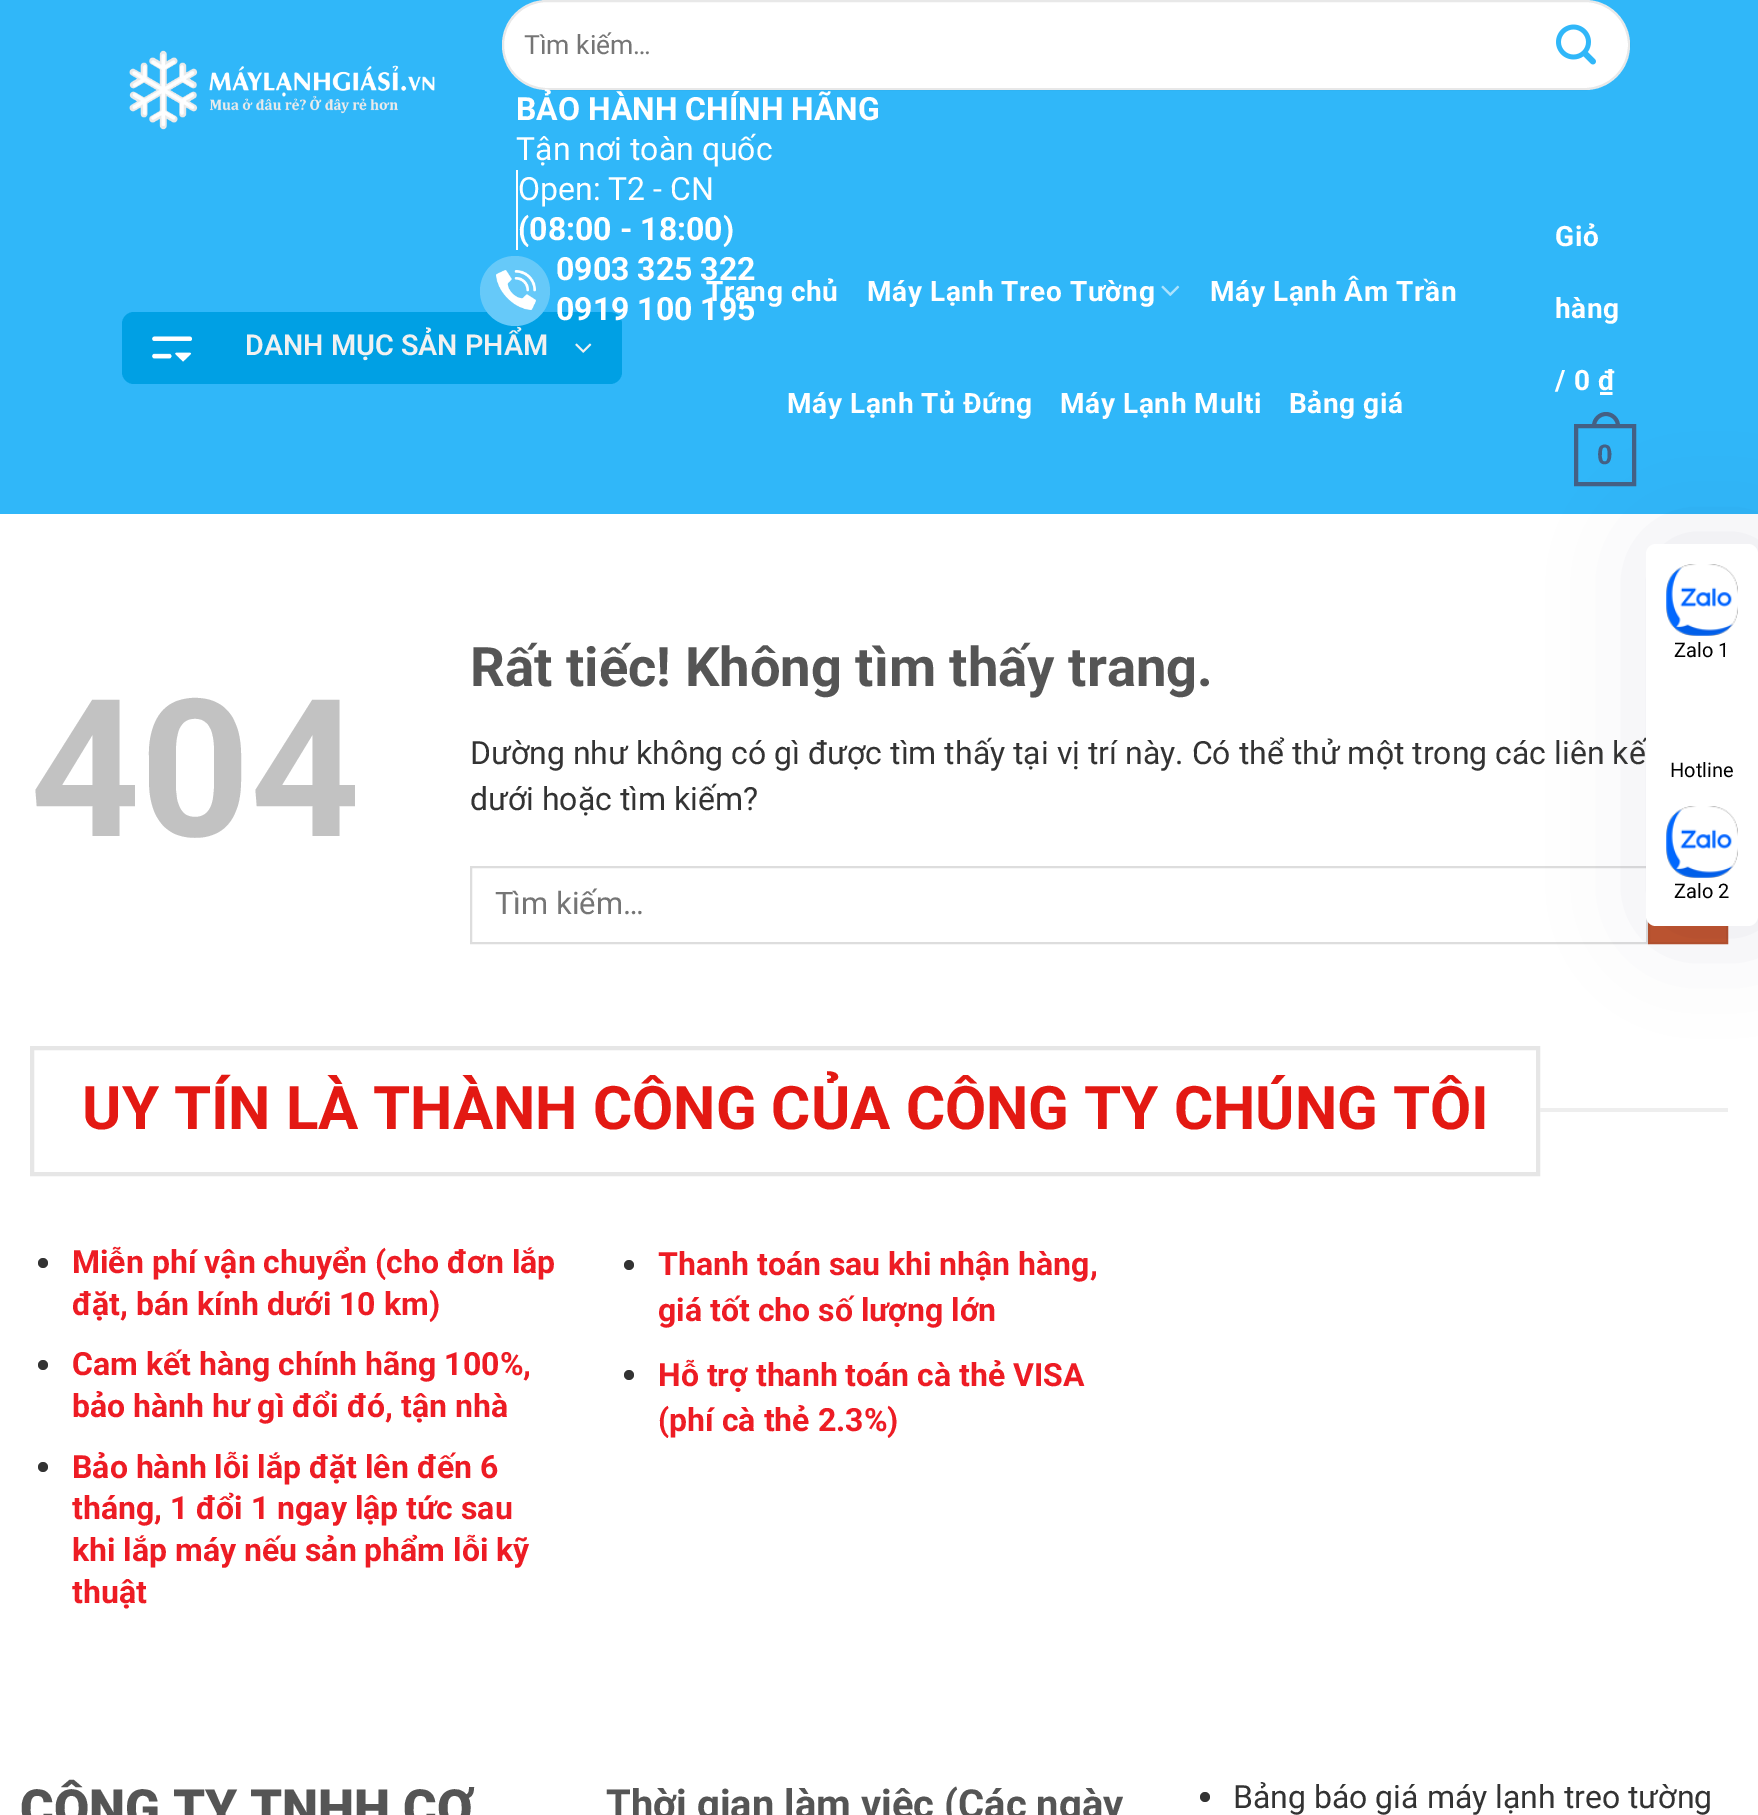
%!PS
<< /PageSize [1758 1815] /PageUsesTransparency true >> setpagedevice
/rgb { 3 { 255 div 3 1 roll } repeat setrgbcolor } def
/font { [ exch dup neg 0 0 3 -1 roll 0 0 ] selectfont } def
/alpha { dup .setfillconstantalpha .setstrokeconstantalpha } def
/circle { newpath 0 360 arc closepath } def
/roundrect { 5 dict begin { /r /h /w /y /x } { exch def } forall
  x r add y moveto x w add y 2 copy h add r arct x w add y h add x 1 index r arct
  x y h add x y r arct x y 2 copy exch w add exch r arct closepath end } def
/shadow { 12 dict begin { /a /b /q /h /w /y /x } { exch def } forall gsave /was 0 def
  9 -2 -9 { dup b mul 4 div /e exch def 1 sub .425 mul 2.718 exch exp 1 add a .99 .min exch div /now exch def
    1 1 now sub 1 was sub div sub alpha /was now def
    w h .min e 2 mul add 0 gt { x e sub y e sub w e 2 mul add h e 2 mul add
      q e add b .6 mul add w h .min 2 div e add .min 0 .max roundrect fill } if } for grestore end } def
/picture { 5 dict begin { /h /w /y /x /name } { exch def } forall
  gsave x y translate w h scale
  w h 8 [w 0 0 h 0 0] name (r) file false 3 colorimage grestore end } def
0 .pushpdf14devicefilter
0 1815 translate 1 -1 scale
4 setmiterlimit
255 255 255 rgb
0 0 1758 1815 rectfill
48 183 249 rgb
0 0 1758 514 rectfill
(img/1.rgb) 129 50 306 80 picture
255 255 255 rgb
502 0 1128 90 45 roundrect fill
0.09 alpha
0 0 0 rgb
2 setlinewidth
503 1 1126 88 44 roundrect stroke
1 alpha
(img/2.rgb) 1556 24 40 41 picture
255 255 255 rgb
516 170 2 80 rectfill
0 160 228 rgb
122 312 500 72 12 roundrect fill
102 201 249 rgb
515 291 35 circle fill
(img/3.rgb) 496 270 40 40 picture
(img/4.rgb) 152 336 40 26 picture
(img/5.rgb) 575 343 17 10 picture
(img/6.rgb) 1161 285 19 11 picture
68 96 132 rgb
4 setlinewidth
1576 426 58 58 rectstroke
1606 412 moveto 1613.5 412 1620 418.5 1620 426 curveto 1620 428 lineto 1592 428 lineto 1592 426 lineto 1592 418.5 1598.5 412 1606 412 curveto closepath 1606 416 moveto 1611.5 416 1616 420.5 1616 426 curveto 1616 428 lineto 1596 428 lineto 1596 426 lineto 1596 420.5 1600.5 416 1606 416 curveto closepath eofill
221 221 221 rgb
2 setlinewidth
471 867 1176 76 rectstroke
192 85 48 rgb
1650 924 76 18 rectfill
182 81 46 rgb
1649 867 78 76 rectstroke
230 230 230 rgb
4 setlinewidth
32 1048 1506 126 rectstroke
238 238 238 rgb
1540 1108 188 4 rectfill
51 51 51 rgb
43 1263 5 circle fill
43 1365 5 circle fill
43 1467 5 circle fill
629 1265 5 circle fill
629 1375 5 circle fill
1205 1797 5 circle fill
8 0 63 rgb
1658 544 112 382 10 50 0.1 shadow
/Roboto-Regular 26.5 font
117 117 117 rgb
524 54 moveto (Tìm kiếm…) show
/Roboto-Bold 32 font
255 255 255 rgb
516 120 moveto (BẢO HÀNH CHÍNH HÃNG) show
/Roboto-Regular 32 font
516 160 moveto (Tận nơi toàn quốc) show
518 200 moveto (Open: T2 - CN) show
/Roboto-Bold 32 font
518 240 moveto (\(08:00 - 18:00\)) show
556 280 moveto (0903 325 322) show
/Roboto-SemiBold 28.75 font
241 241 241 rgb
245 355 moveto (DANH MỤC SẢN PHẨM) show
/Roboto-Bold 28 font
255 255 255 rgb
706 301 moveto 0.6 0 (Trang chủ) ashow
/Roboto-Bold 32 font
556 320 moveto (0919 100 195) show
/Roboto-Bold 28 font
867 301 moveto 0.6 0 (Máy Lạnh Treo Tường) ashow
1210 301 moveto 0.6 0 (Máy Lạnh Âm Trần) ashow
787 413 moveto 0.6 0 (Máy Lạnh Tủ Đứng) ashow
1060 413 moveto 0.6 0 (Máy Lạnh Multi) ashow
1289 413 moveto 0.6 0 (Bảng giá) ashow
1555 246 moveto 0.6 0 (Giỏ) ashow
1555 318 moveto 0.6 0 (hàng) ashow
1555 390 moveto 0.6 0 (/ 0 ₫) ashow
/LiberationSans-Bold 28 font
68 96 132 rgb
1597 464 moveto 0.6 0 (0) ashow
/Roboto-Bold 192 font
194 194 194 rgb
30 836 moveto (404) show
/Roboto-Bold 54.4 font
85 85 85 rgb
470 686 moveto (Rất tiếc! Không tìm thấy trang.) show
/Roboto-Regular 32 font
51 51 51 rgb
470 764 moveto (Dường như không có gì được tìm thấy tại vị trí này. Có thể thử một trong các liên kế) show
470 810 moveto (dưới hoặc tìm kiếm?) show
/Roboto-Regular 31 font
117 117 117 rgb
495 914 moveto (Tìm kiếm…) show
/Roboto-Bold 60 font
227 25 19 rgb
82 1129 moveto (UY TÍN LÀ THÀNH CÔNG CỦA CÔNG TY CHÚNG TÔI) show
/Roboto-Bold 32 font
237 28 36 rgb
[
  [(Miễn phí vận chuyển \(cho đơn lắp) 72 1273]
  [(đặt, bán kính dưới 10 km\)) 72 1315]
  [(Cam kết hàng chính hãng 100%,) 72 1375]
  [(bảo hành hư gì đổi đó, tận nhà) 72 1417]
  [(Bảo hành lỗi lắp đặt lên đến 6) 72 1478]
  [(tháng, 1 đổi 1 ngay lập tức sau) 72 1519]
  [(khi lắp máy nếu sản phẩm lỗi kỹ) 72 1561]
  [(thuật) 72 1603]
  [(Thanh toán sau khi nhận hàng,) 658 1275]
  [(giá tốt cho số lượng lớn) 658 1321]
  [(Hỗ trợ thanh toán cà thẻ VISA) 658 1386]
  [(\(phí cà thẻ 2.3%\)) 658 1431]
] { aload pop moveto show } forall
/Roboto-Black 51.25 font
85 85 85 rgb
20 1826 moveto (CÔNG TY TNHH CƠ) show
/Roboto-Bold 40 font
606 1818 moveto (Thời gian làm việc \(Các ngày) show
/Roboto-Regular 32 font
51 51 51 rgb
1233 1808 moveto (Bảng báo giá máy lạnh treo tường) show
255 255 255 rgb
1646 544 112 382 10 roundrect fill
(img/7.rgb) 1666 564 72 72 picture
/Roboto-Regular 20 font
0 0 0 rgb
1674 657 moveto (Zalo 1) show
1670 777 moveto (Hotline) show
(img/7.rgb) 1666 806 72 72 picture
1674 898 moveto (Zalo 2) show
.poppdf14devicefilter showpage
